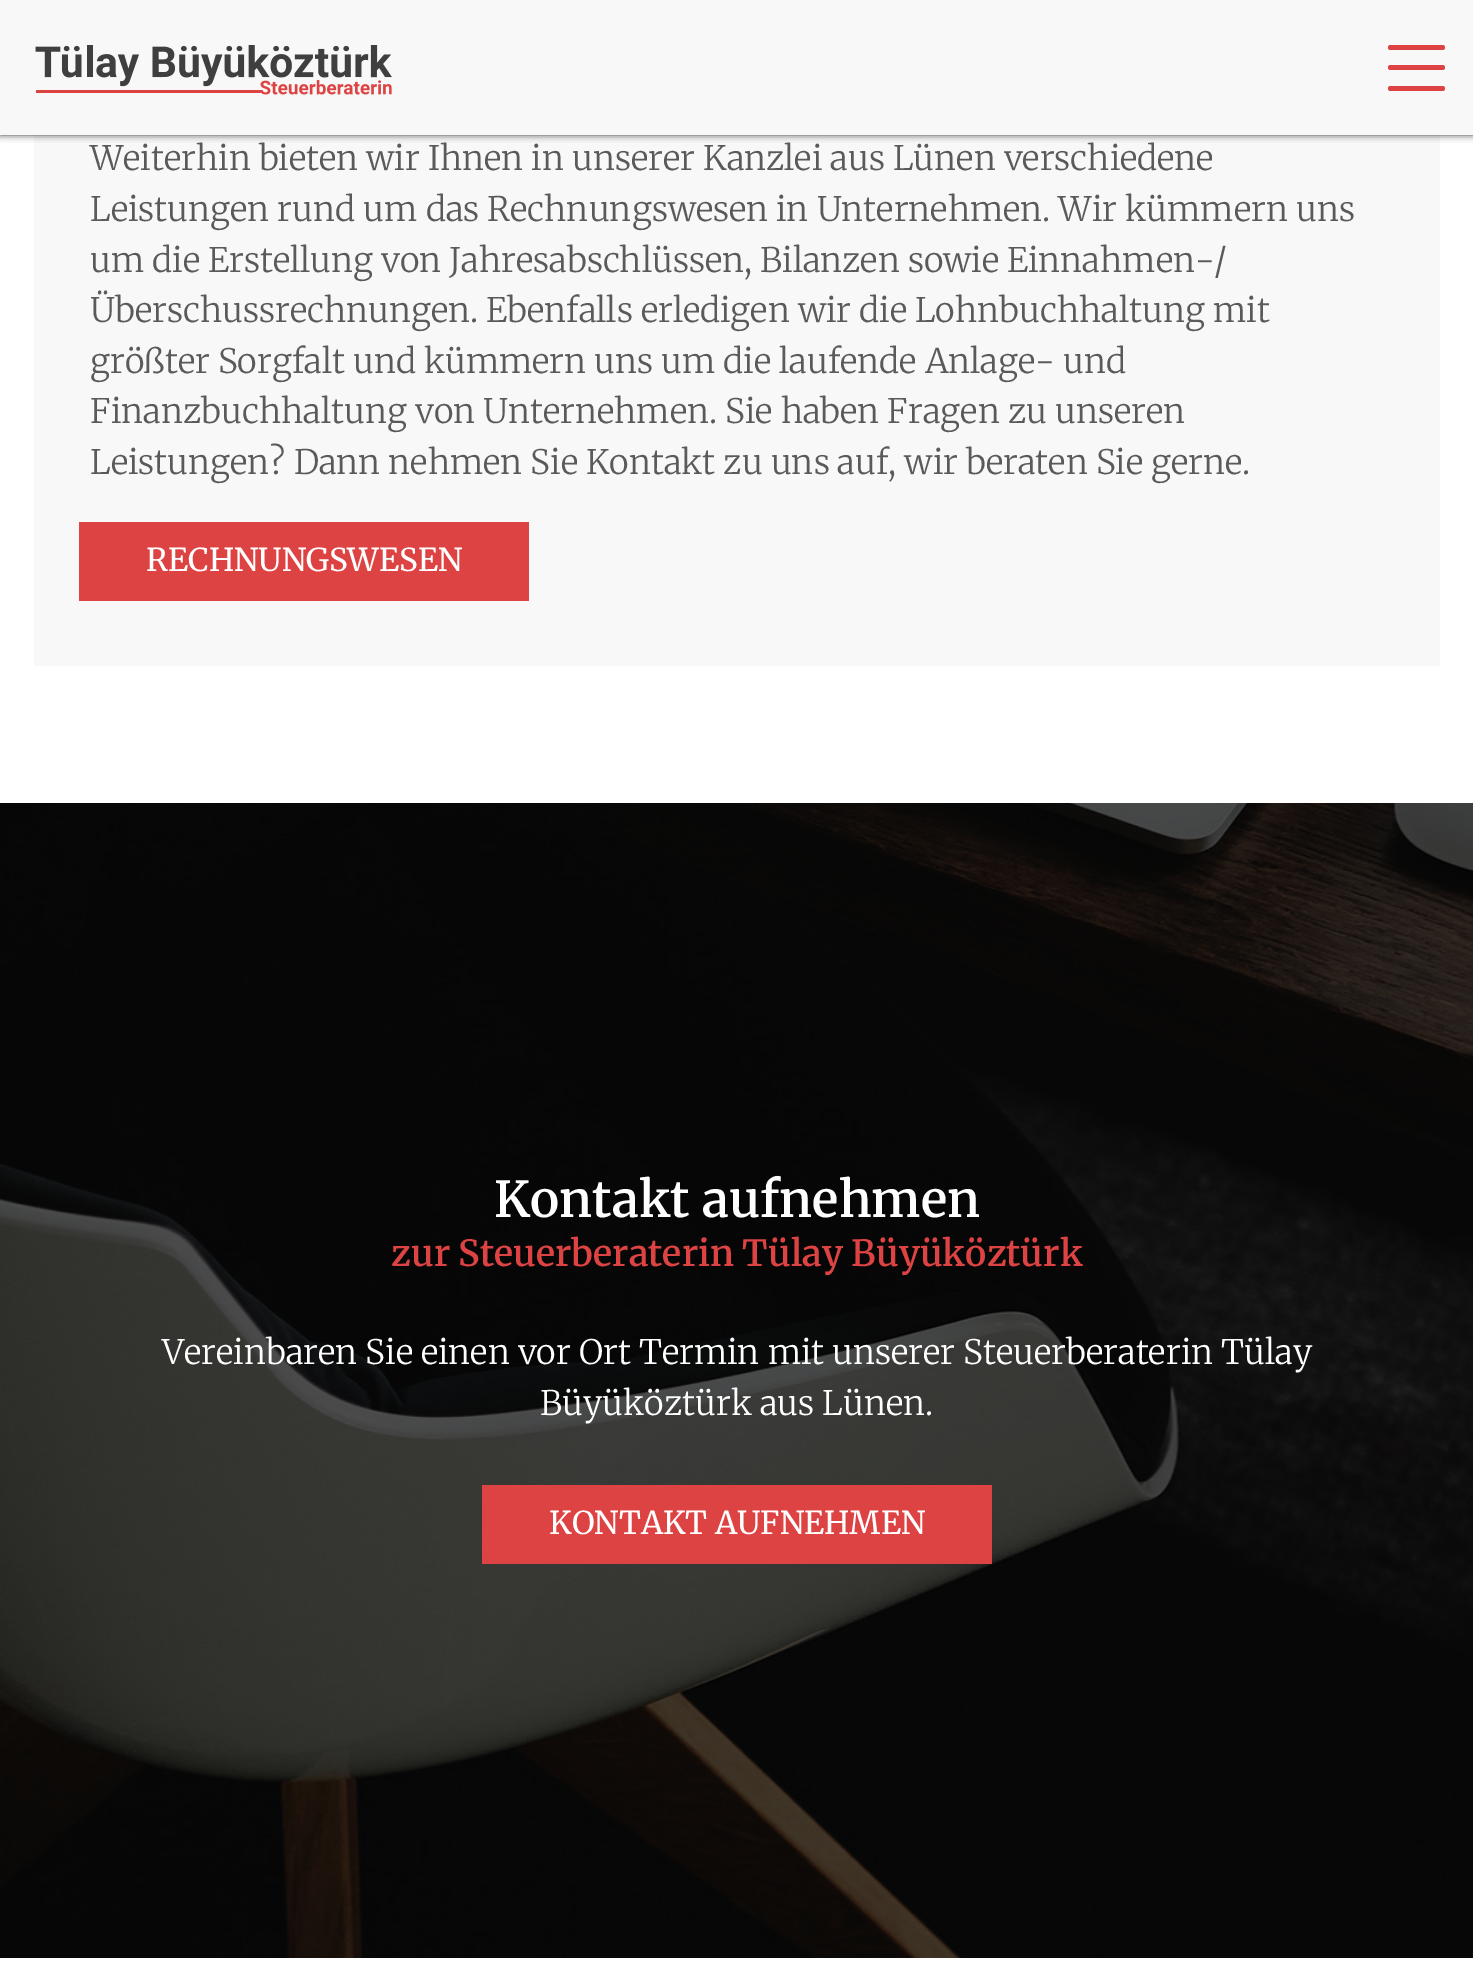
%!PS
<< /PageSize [1473 1973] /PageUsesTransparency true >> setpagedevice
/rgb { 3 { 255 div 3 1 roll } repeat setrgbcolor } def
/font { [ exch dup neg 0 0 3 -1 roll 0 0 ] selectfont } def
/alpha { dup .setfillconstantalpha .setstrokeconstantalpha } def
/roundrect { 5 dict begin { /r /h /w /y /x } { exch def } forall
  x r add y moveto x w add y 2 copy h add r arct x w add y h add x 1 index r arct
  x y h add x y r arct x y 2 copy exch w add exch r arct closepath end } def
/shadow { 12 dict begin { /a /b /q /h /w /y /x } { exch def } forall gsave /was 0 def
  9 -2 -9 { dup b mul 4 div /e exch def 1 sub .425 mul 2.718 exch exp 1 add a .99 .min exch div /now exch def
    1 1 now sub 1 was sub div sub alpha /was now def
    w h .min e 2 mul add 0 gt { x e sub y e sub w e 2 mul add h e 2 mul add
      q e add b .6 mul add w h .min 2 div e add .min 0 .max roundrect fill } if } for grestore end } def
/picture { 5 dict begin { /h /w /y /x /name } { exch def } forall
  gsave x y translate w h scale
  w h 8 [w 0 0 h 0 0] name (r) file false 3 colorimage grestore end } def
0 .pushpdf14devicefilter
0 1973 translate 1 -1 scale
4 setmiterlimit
255 255 255 rgb
0 0 1473 1973 rectfill
248 248 248 rgb
34 135 1406 531 rectfill
63 63 63 rgb
0 0 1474 135 0 3.5 1 shadow
248 248 248 rgb
0 0 1473 135 rectfill
(img/1.rgb) 35 45 357 50 picture
222 67 67 rgb
1388 45 57 5 2.5 roundrect fill
1388 65 57 5 2.5 roundrect fill
1388 86 57 5 2.5 roundrect fill
79 522 450 79 rectfill
(img/2.rgb) 0 803 1473 1155 picture
482 1485 510 79 rectfill
/Merriweather-Light 33.75 font
90 90 90 rgb
[
  [(Weiterhin bieten wir Ihnen in unserer Kanzlei aus Lünen verschiedene) 90 170]
  [(Leistungen rund um das Rechnungswesen in Unternehmen. Wir kümmern uns) 90 221]
  [(um die Erstellung von Jahresabschlüssen, Bilanzen sowie Einnahmen-/) 90 272]
  [(Überschussrechnungen. Ebenfalls erledigen wir die Lohnbuchhaltung mit) 90 322]
  [(größter Sorgfalt und kümmern uns um die laufende Anlage- und) 90 373]
  [(Finanzbuchhaltung von Unternehmen. Sie haben Fragen zu unseren) 90 423]
  [(Leistungen? Dann nehmen Sie Kontakt zu uns auf, wir beraten Sie gerne.) 90 474]
] { aload pop moveto show } forall
/Merriweather-Regular 31.5 font
255 255 255 rgb
146 571 moveto (RECHNUNGSWESEN) show
/Merriweather-SemiBold 49.5 font
494 1217 moveto (Kontakt aufnehmen) show
/Merriweather-SemiBold 36 font
222 67 67 rgb
391 1266 moveto (zur Steuerberaterin Tülay Büyüköztürk) show
/Merriweather-Light 33.75 font
255 255 255 rgb
162 1364 moveto (Vereinbaren Sie einen vor Ort Termin mit unserer Steuerberaterin Tülay) show
540 1415 moveto (Büyüköztürk aus Lünen.) show
/Merriweather-Regular 31.5 font
549 1534 moveto (KONTAKT AUFNEHMEN) show
.poppdf14devicefilter showpage
